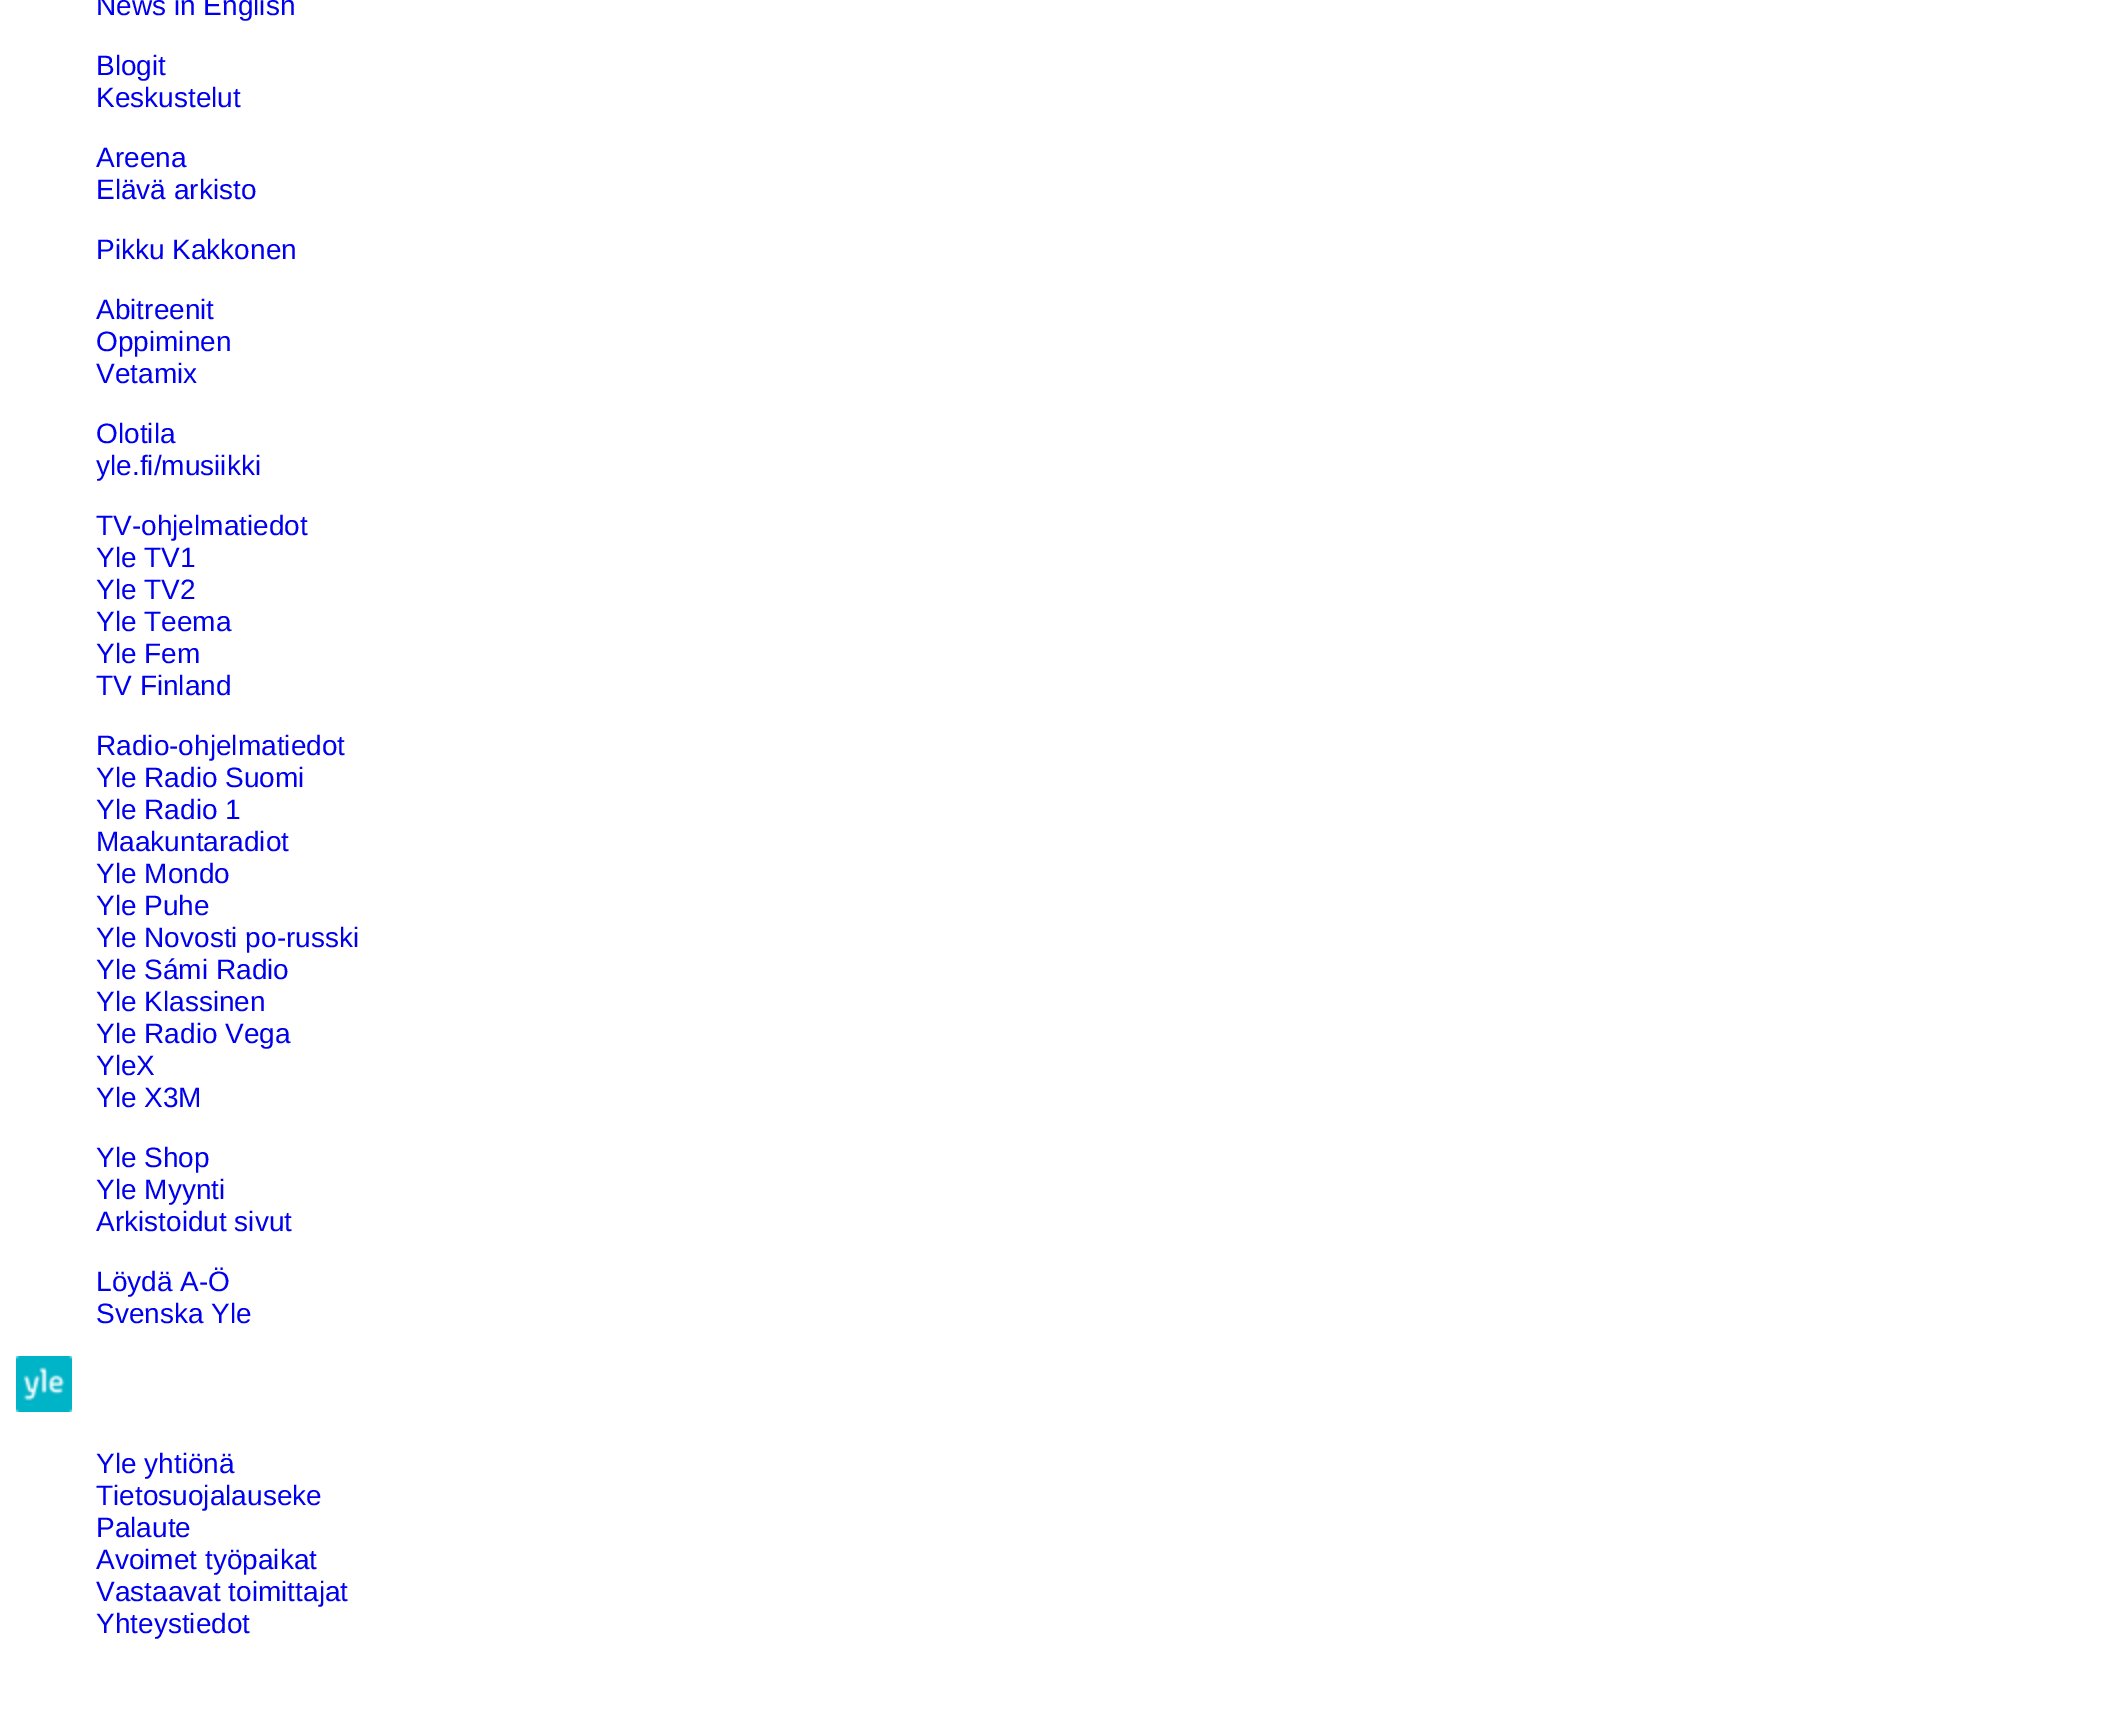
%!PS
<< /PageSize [2106 1714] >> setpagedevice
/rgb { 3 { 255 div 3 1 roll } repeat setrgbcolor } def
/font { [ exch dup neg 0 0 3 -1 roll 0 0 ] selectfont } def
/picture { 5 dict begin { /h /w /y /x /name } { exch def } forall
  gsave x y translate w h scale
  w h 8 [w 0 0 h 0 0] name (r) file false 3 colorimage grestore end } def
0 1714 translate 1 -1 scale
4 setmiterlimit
255 255 255 rgb
0 0 2106 1714 rectfill
(img/1.rgb) 16 1356 56 56 picture
/LiberationSans-Regular 28 font
0 0 238 rgb
[
  [(News in English) 96 15]
  [(Blogit) 96 75]
  [(Keskustelut) 96 107]
  [(Areena) 96 167]
  [(Elävä arkisto) 96 199]
  [(Pikku Kakkonen) 96 259]
  [(Abitreenit) 96 319]
  [(Oppiminen) 96 351]
  [(Vetamix) 96 383]
  [(Olotila) 96 443]
  [(yle.fi/musiikki) 96 475]
  [(TV-ohjelmatiedot) 96 535]
  [(Yle TV1) 96 567]
  [(Yle TV2) 96 599]
  [(Yle Teema) 96 631]
  [(Yle Fem) 96 663]
  [(TV Finland) 96 695]
  [(Radio-ohjelmatiedot) 96 755]
  [(Yle Radio Suomi) 96 787]
  [(Yle Radio 1) 96 819]
  [(Maakuntaradiot) 96 851]
  [(Yle Mondo) 96 883]
  [(Yle Puhe) 96 915]
  [(Yle Novosti po-russki) 96 947]
  [(Yle Sámi Radio) 96 979]
  [(Yle Klassinen) 96 1011]
  [(Yle Radio Vega) 96 1043]
  [(YleX) 96 1075]
  [(Yle X3M) 96 1107]
  [(Yle Shop) 96 1167]
  [(Yle Myynti) 96 1199]
  [(Arkistoidut sivut) 96 1231]
  [(Löydä A-Ö) 96 1291]
  [(Svenska Yle) 96 1323]
  [(Yle yhtiönä) 96 1473]
  [(Tietosuojalauseke) 96 1505]
  [(Palaute) 96 1537]
  [(Avoimet työpaikat) 96 1569]
  [(Vastaavat toimittajat) 96 1601]
  [(Yhteystiedot) 96 1633]
] { aload pop moveto show } forall
showpage
